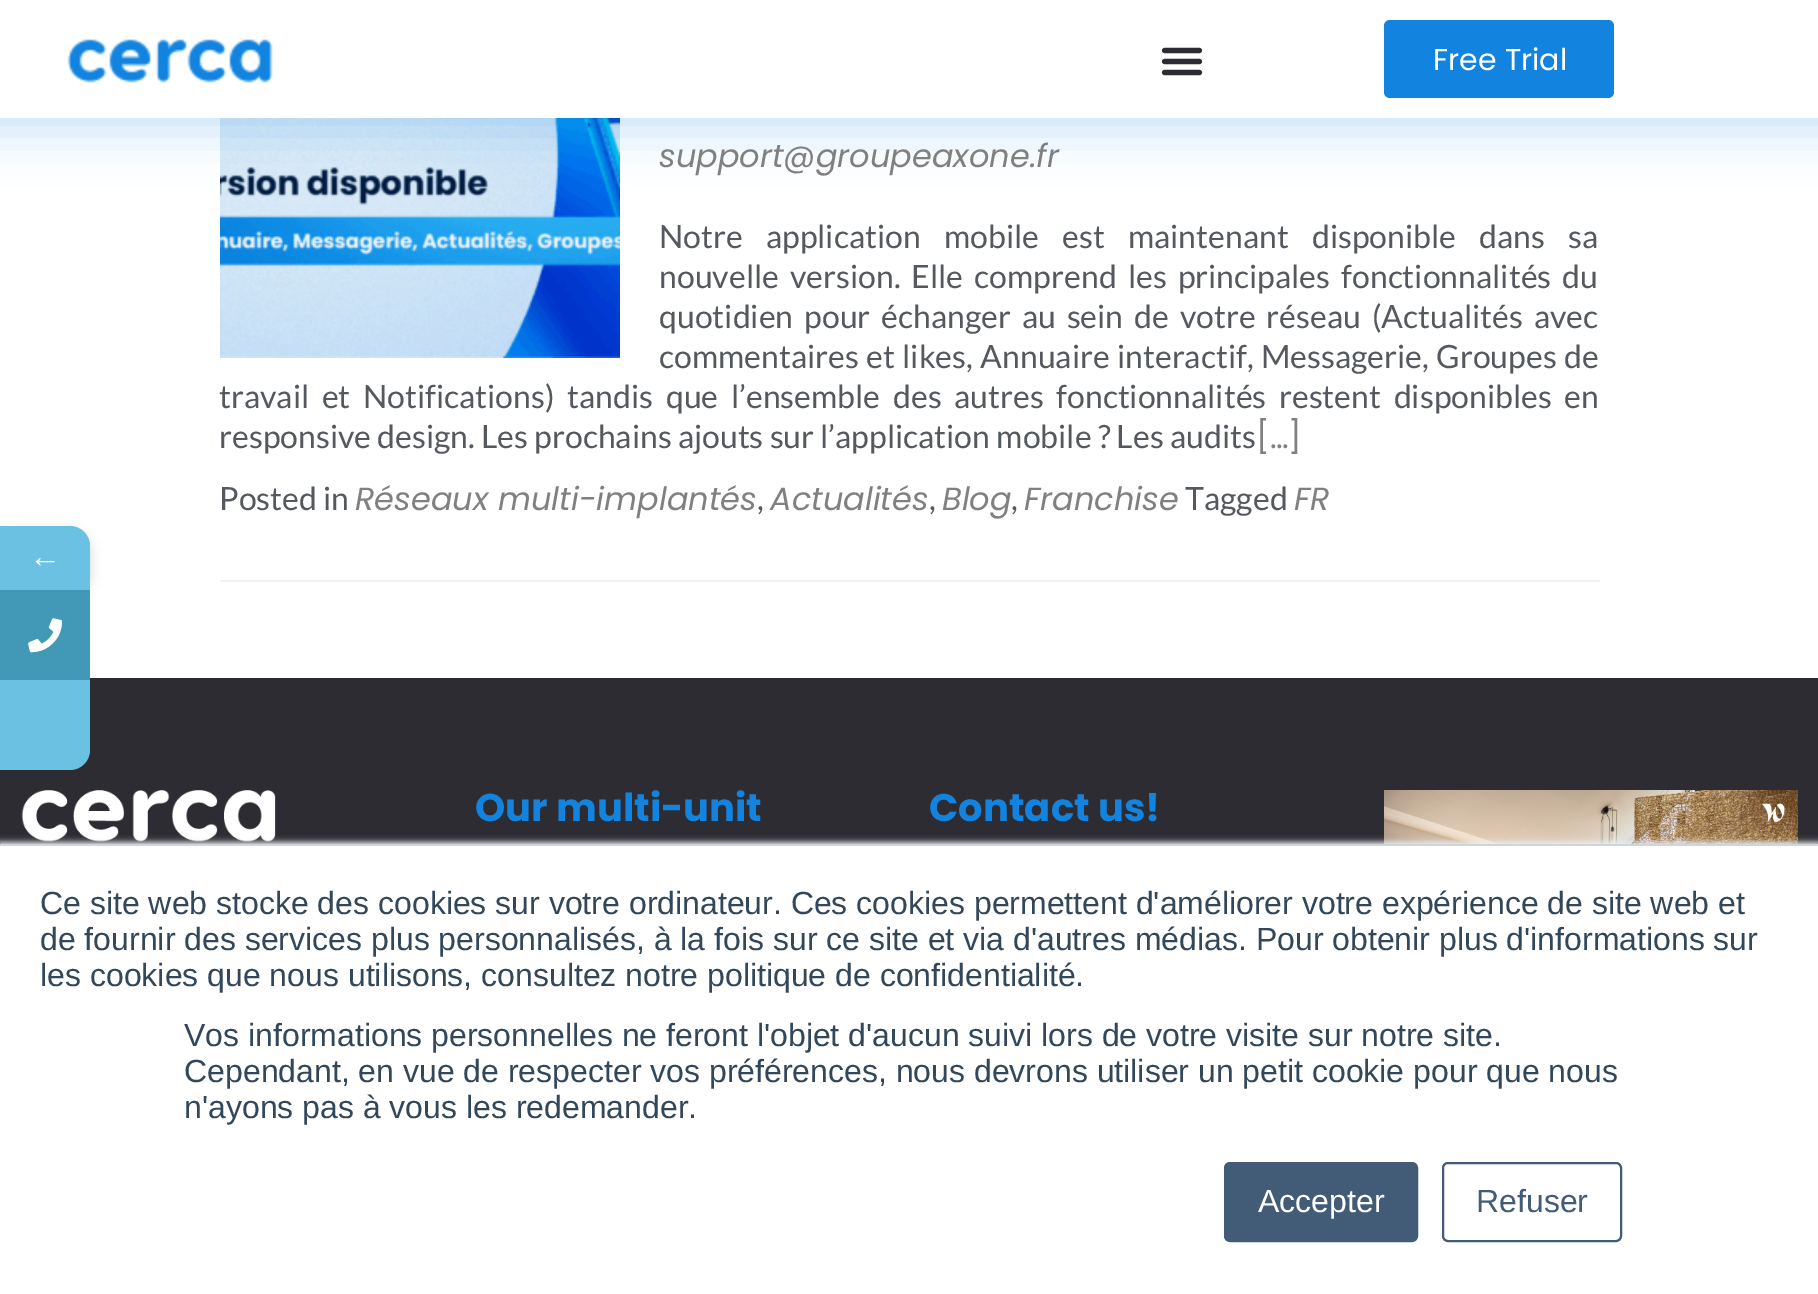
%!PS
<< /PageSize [1818 1294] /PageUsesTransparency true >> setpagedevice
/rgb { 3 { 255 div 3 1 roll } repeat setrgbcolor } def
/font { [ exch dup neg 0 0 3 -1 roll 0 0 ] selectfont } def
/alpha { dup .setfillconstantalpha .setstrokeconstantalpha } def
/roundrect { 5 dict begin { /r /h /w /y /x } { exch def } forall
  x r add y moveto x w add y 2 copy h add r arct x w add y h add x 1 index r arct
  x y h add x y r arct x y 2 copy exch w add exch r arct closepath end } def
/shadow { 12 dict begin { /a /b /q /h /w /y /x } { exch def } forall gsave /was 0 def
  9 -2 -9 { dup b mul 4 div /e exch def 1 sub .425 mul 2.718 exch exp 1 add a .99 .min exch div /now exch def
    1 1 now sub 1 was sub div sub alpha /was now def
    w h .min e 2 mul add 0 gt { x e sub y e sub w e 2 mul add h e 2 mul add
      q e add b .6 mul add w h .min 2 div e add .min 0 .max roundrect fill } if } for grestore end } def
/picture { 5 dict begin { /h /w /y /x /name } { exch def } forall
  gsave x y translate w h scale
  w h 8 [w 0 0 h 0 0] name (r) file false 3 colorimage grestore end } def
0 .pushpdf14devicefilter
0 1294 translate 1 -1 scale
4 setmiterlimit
255 255 255 rgb
0 0 1818 1294 rectfill
(img/3.rgb) 220 118 400 240 picture
18 132 224 rgb
-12 -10 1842 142 0 25 0.23 shadow
255 255 255 rgb
0 0 1818 118 rectfill
(img/1.rgb) 67 39 206 44 picture
(img/2.rgb) 1161 47 42 29 picture
18 132 224 rgb
1384 20 230 78 6 roundrect fill
242 242 242 rgb
220 580 1380 2 rectfill
0 0 0 rgb
0 532 90 64 20 6 0.16 shadow
106 193 226 rgb
0 526 moveto 70 526 lineto 81 526 90 535 90 546 curveto 90 590 lineto 0 590 lineto closepath fill
46 44 51 rgb
0 678 1818 166 rectfill
65 152 183 rgb
0 590 90 90 rectfill
(img/4.rgb) 28 618 35 35 picture
106 193 226 rgb
0 680 moveto 90 680 lineto 90 750 lineto 90 761 81 770 70 770 curveto 0 770 lineto closepath fill
(img/5.rgb) 21 790 255 52 picture
(img/6.rgb) 1384 790 414 54 picture
234 240 246 rgb
0 842 1818 450 0 3 1 shadow
255 255 255 rgb
0 846 1818 448 rectfill
203 214 226 rgb
0 844 1818 2 rectfill
66 91 118 rgb
1225 1163 192 78 5 roundrect gsave fill grestore
2 setlinewidth
stroke
1443 1163 178 78 5 roundrect stroke
/Poppins-Regular 30 font
255 255 255 rgb
1433 70 moveto (Free Trial) show
/Poppins-Italic 32 font
128 128 128 rgb
659 167 moveto (support@groupeaxone.fr) show
/Lato-Regular 32 font
84 89 95 rgb
659 248 moveto 17 0 32 (Notre application mobile est maintenant disponible dans sa) widthshow
659 288 moveto 5 0 32 (nouvelle version. Elle comprend les principales fonctionnalités du) widthshow
659 328 moveto 4.75 0 32 (quotidien pour échanger au sein de votre réseau \(Actualités avec) widthshow
659 368 moveto 1.25 0 32 (commentaires et likes, Annuaire interactif, Messagerie, Groupes de) widthshow
219 408 moveto 6.5 0 32 (travail et Notifications\) tandis que l’ensemble des autres fonctionnalités restent disponibles en) widthshow
219 448 moveto (responsive design. Les prochains ajouts sur l’application mobile ? Les audits) show
/Poppins-Regular 32 font
128 128 128 rgb
1256 448 moveto ([…]) show
/Lato-Regular 32 font
84 89 95 rgb
219 510 moveto (Posted in) show
/Poppins-Italic 32 font
128 128 128 rgb
355 510 moveto (Réseaux multi-implantés) show
/Lato-Regular 32 font
84 89 95 rgb
757 510 moveto (,) show
/Poppins-Italic 32 font
128 128 128 rgb
770 510 moveto (Actualités) show
/Lato-Regular 32 font
84 89 95 rgb
929 510 moveto (,) show
/Poppins-Italic 32 font
128 128 128 rgb
942 510 moveto (Blog) show
/Lato-Regular 32 font
84 89 95 rgb
1011 510 moveto (,) show
/Poppins-Italic 32 font
128 128 128 rgb
1024 510 moveto (Franchise) show
/Lato-Regular 32 font
84 89 95 rgb
1185 510 moveto (Tagged) show
/Poppins-Italic 32 font
128 128 128 rgb
1294 510 moveto (FR) show
/LiberationSerif-Regular 32 font
255 255 255 rgb
29 567 moveto (←) show
/Poppins-Bold 38.5 font
18 132 224 rgb
475 821 moveto (Our multi-unit) show
929 821 moveto (Contact us!) show
/LiberationSans-Regular 32 font
51 71 91 rgb
[
  [(Ce site web stocke des cookies sur votre ordinateur. Ces cookies permettent d'améliorer votre expérience de site web et) 40 914]
  [(de fournir des services plus personnalisés, à la fois sur ce site et via d'autres médias. Pour obtenir plus d'informations sur) 40 950]
  [(les cookies que nous utilisons, consultez notre politique de confidentialité.) 40 986]
  [(Vos informations personnelles ne feront l'objet d'aucun suivi lors de votre visite sur notre site.) 184 1046]
  [(Cependant, en vue de respecter vos préférences, nous devrons utiliser un petit cookie pour que nous) 184 1082]
  [(n'ayons pas à vous les redemander.) 184 1118]
] { aload pop moveto show } forall
255 255 255 rgb
1258 1212 moveto (Accepter) show
66 91 118 rgb
1476 1212 moveto (Refuser) show
.poppdf14devicefilter showpage
